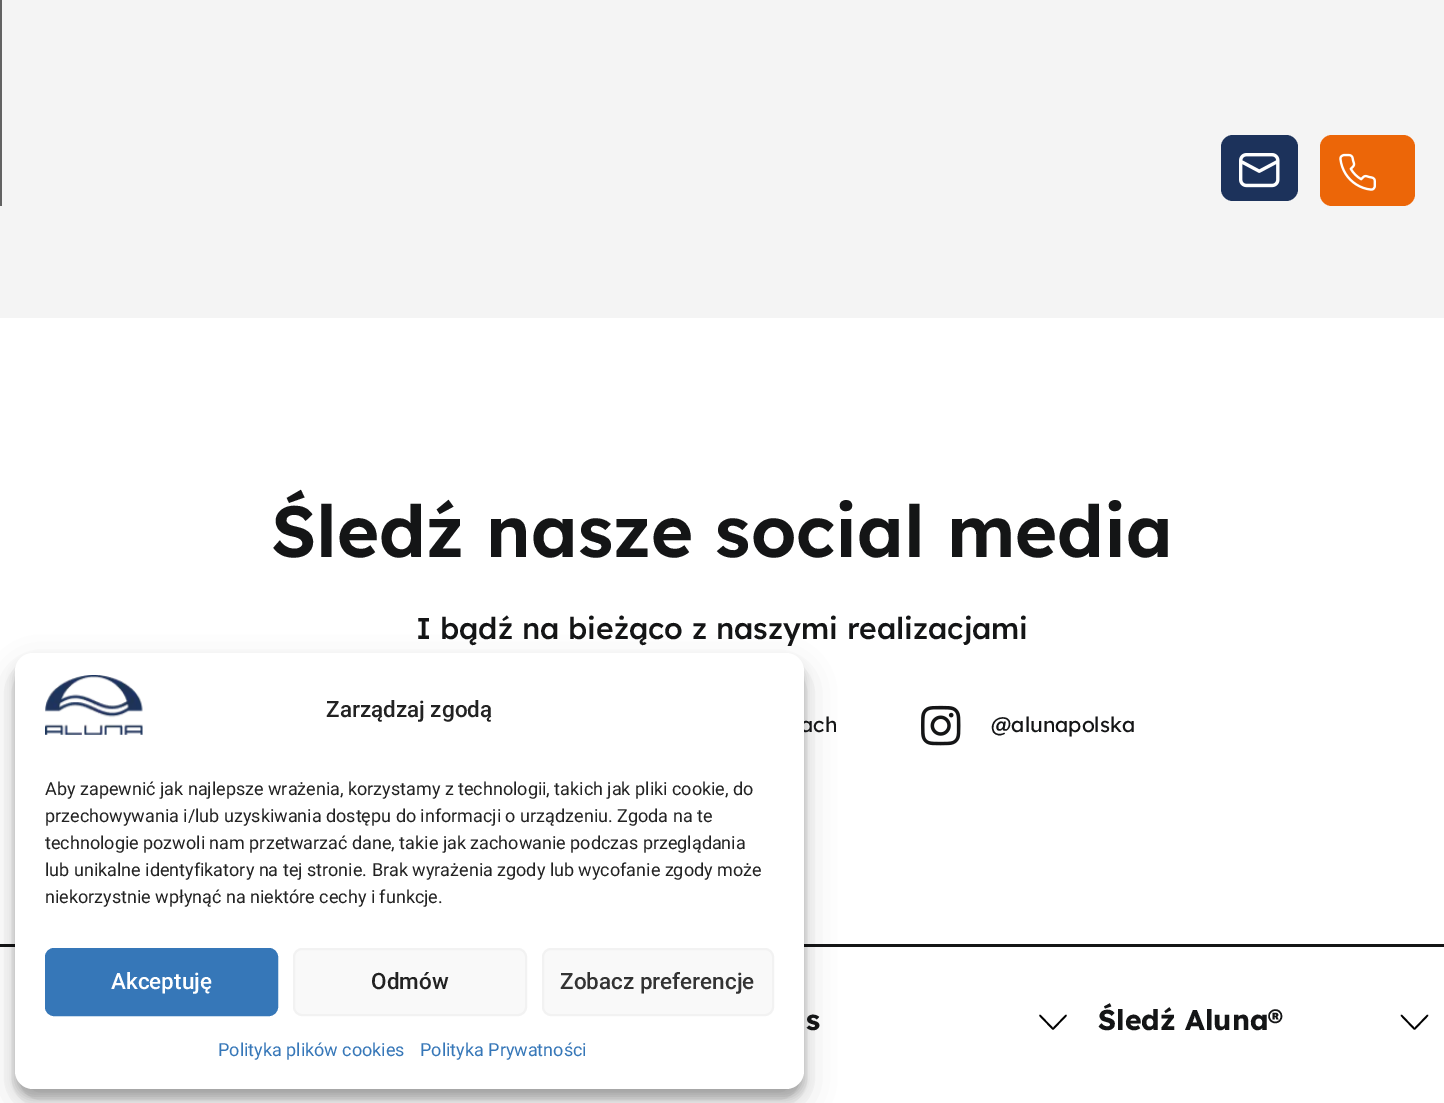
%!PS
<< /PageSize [1444 1103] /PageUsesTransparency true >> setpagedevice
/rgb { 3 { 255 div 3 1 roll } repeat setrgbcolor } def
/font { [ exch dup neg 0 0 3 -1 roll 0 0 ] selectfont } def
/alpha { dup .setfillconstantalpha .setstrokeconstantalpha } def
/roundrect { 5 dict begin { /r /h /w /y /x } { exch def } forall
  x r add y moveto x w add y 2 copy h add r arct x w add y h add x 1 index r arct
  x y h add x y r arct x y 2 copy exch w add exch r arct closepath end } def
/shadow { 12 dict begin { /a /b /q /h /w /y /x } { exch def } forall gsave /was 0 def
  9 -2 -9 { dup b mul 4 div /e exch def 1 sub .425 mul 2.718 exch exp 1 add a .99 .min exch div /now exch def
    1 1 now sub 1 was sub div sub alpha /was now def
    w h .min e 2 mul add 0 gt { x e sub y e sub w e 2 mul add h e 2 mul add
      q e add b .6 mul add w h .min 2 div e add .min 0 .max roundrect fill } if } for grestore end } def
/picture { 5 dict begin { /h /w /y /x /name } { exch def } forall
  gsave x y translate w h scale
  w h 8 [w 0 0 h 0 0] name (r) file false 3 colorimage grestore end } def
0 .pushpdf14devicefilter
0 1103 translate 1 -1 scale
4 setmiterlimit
255 255 255 rgb
0 0 1444 1103 rectfill
244 244 244 rgb
0 0 1444 318 rectfill
98 98 98 rgb
0 0 2 206 rectfill
28 50 91 rgb
1221 135 77 66 12 roundrect fill
(img/1.rgb) 1239 153 41 35 picture
236 102 8 rgb
1320 135 95 71 12 roundrect fill
(img/2.rgb) 1339 153 37 38 picture
(img/3.rgb) 921 705 40 41 picture
20 21 22 rgb
0 944 1444 3 rectfill
0 0 0 rgb
15 662 789 436 18 4.5 0.23 shadow
15 668 789 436 18 15 0.19 shadow
1.7 setlinewidth
1 setlinecap
1 setlinejoin
1066 1015.5 moveto 1053 1029 lineto 1040 1015.5 lineto stroke
1427.5 1015.5 moveto 1414.5 1029 lineto 1401.5 1015.5 lineto stroke
/Lexend-SemiBold 72 font
20 21 22 rgb
271 557 moveto (Śledź nasze social media) show
/Lexend-Medium 30 font
416 639 moveto (I bądź na bieżąco z naszymi realizacjami) show
/Lexend-Regular 21 font
800 732 moveto (ach) show
991 732 moveto (@alunapolska) show
255 255 255 rgb
15 653 789 436 18 roundrect fill
(img/4.rgb) 45 675 98 60 picture
/Roboto-Medium 22.5 font
34 34 34 rgb
326 717 moveto (Zarządzaj zgodą) show
/Roboto-Regular 18 font
[
  [(Aby zapewnić jak najlepsze wrażenia, korzystamy z technologii, takich jak pliki cookie, do) 45 795]
  [(przechowywania i/lub uzyskiwania dostępu do informacji o urządzeniu. Zgoda na te) 45 822]
  [(technologie pozwoli nam przetwarzać dane, takie jak zachowanie podczas przeglądania) 45 849]
  [(lub unikalne identyfikatory na tej stronie. Brak wyrażenia zgody lub wycofanie zgody może) 45 876]
  [(niekorzystnie wpłynąć na niektóre cechy i funkcje.) 45 903]
] { aload pop moveto show } forall
54 119 184 rgb
46 949 231 66 8 roundrect gsave fill grestore
2 setlinewidth
0 setlinecap
0 setlinejoin
stroke
/Roboto-Medium 22.5 font
255 255 255 rgb
111 989 moveto (Akceptuję) show
249 249 249 rgb
294 949 232 66 8 roundrect gsave fill grestore
242 242 242 rgb
stroke
34 34 34 rgb
371 989 moveto (Odmów) show
249 249 249 rgb
543 949 230 66 8 roundrect gsave fill grestore
242 242 242 rgb
stroke
51 51 51 rgb
560 989 moveto (Zobacz preferencje) show
/Roboto-Regular 18 font
54 119 184 rgb
218 1056 moveto (Polityka plików cookies) show
420 1056 moveto (Polityka Prywatności) show
/Lexend-Bold 28.5 font
20 21 22 rgb
806 1030 moveto (s) show
1098 1030 moveto (Śledź Aluna®) show
.poppdf14devicefilter showpage
